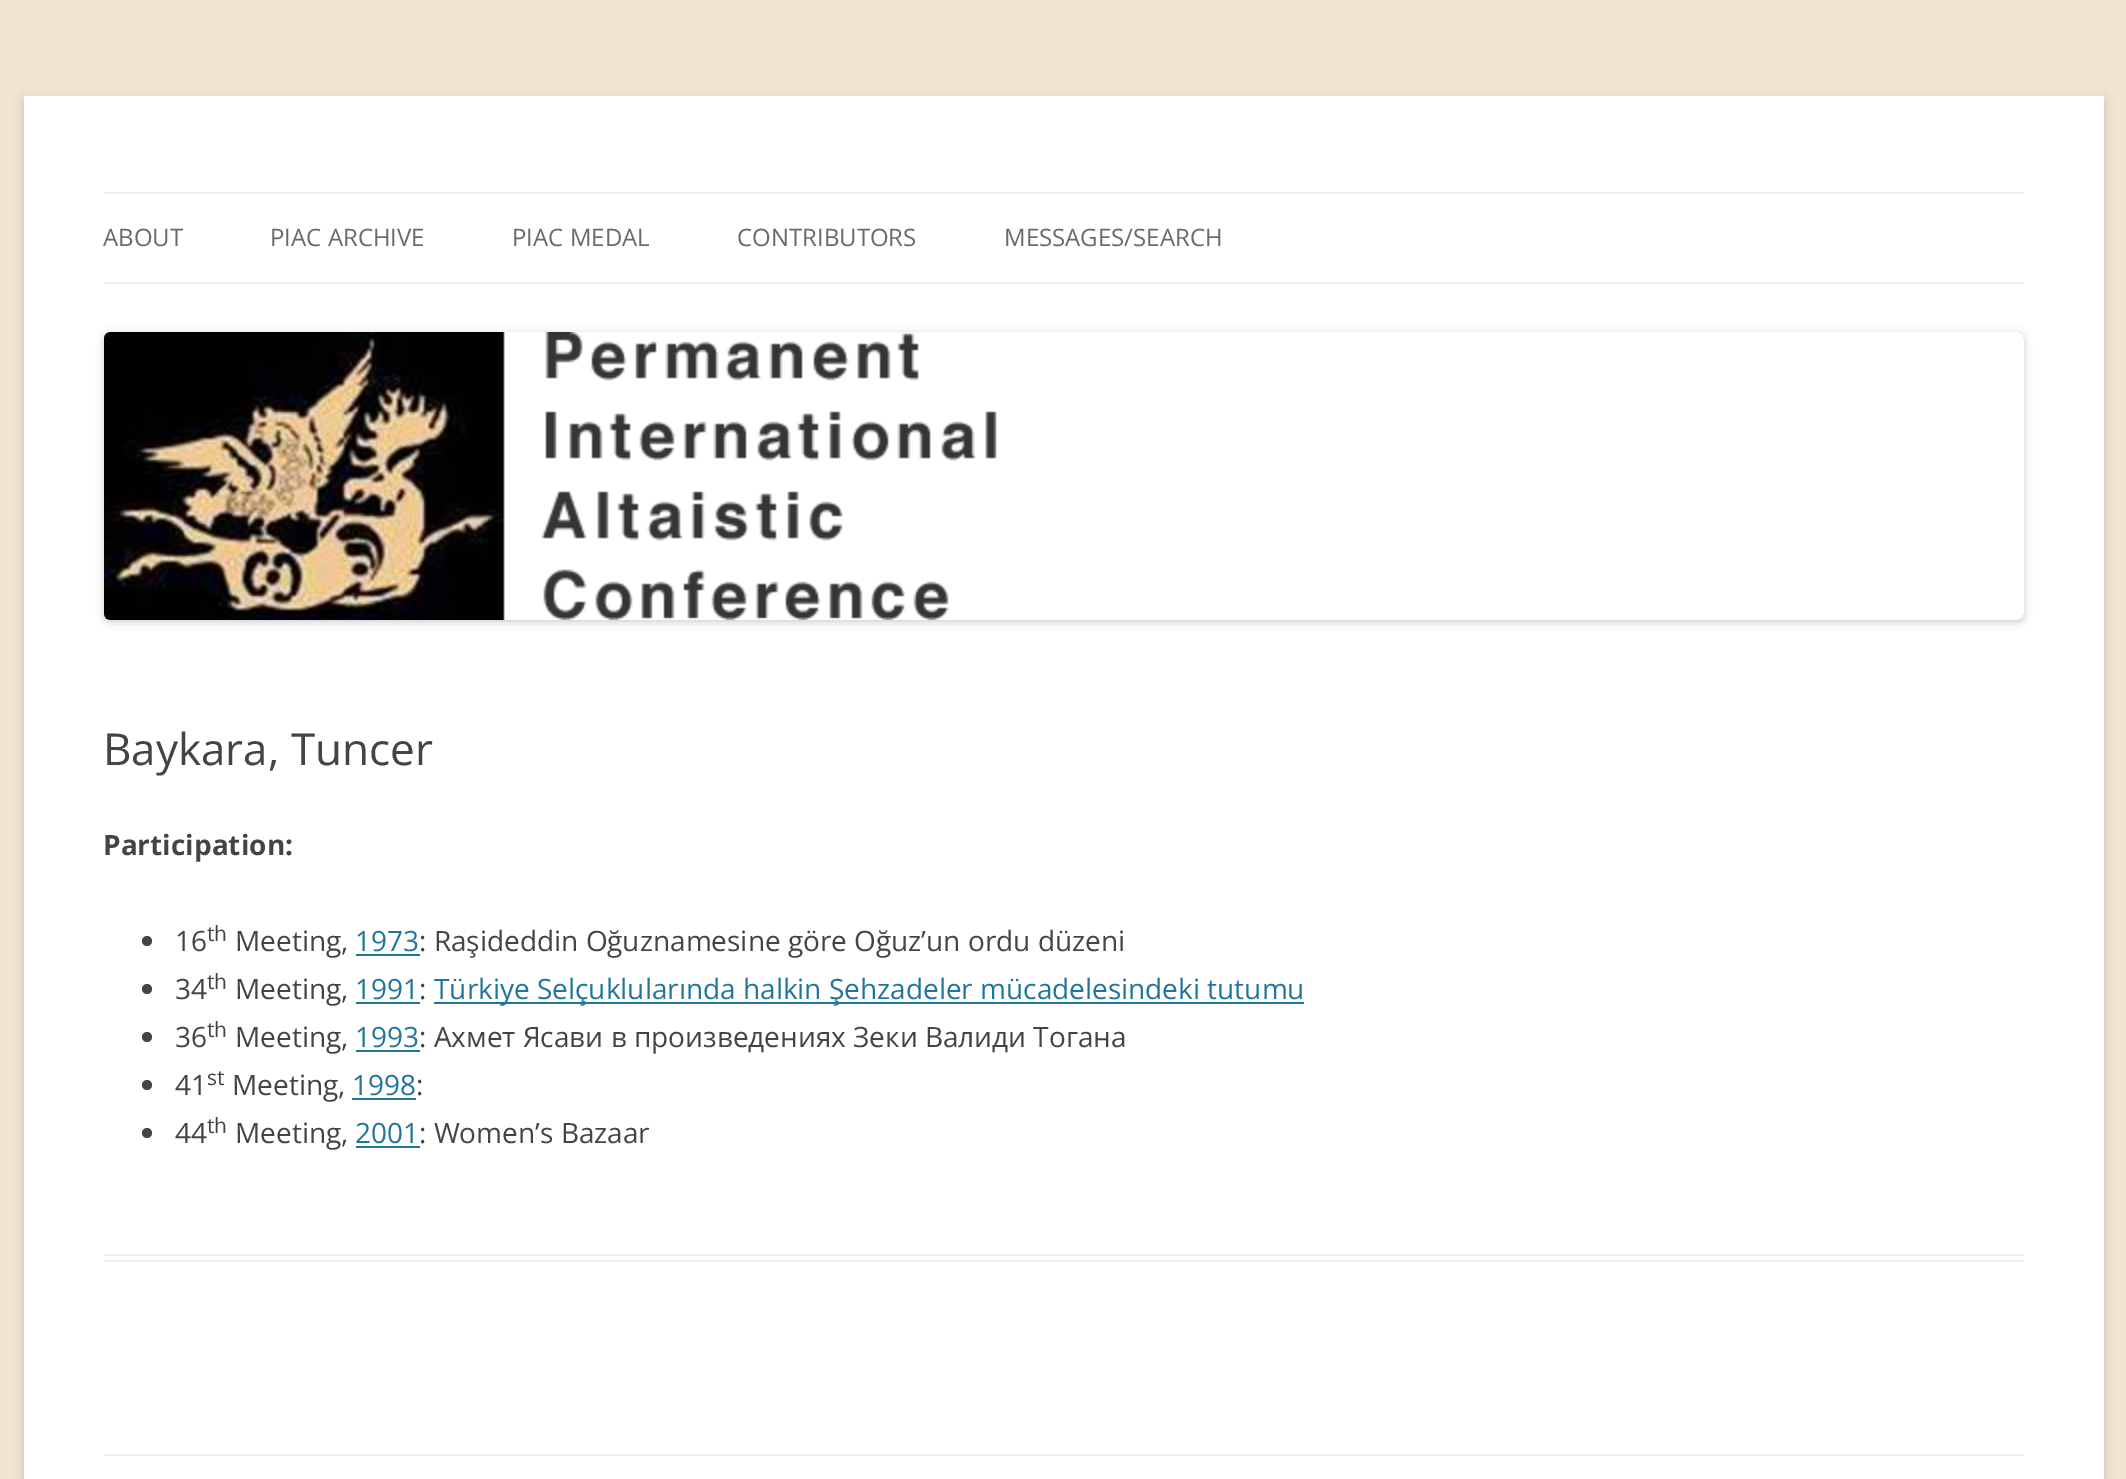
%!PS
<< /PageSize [2126 1479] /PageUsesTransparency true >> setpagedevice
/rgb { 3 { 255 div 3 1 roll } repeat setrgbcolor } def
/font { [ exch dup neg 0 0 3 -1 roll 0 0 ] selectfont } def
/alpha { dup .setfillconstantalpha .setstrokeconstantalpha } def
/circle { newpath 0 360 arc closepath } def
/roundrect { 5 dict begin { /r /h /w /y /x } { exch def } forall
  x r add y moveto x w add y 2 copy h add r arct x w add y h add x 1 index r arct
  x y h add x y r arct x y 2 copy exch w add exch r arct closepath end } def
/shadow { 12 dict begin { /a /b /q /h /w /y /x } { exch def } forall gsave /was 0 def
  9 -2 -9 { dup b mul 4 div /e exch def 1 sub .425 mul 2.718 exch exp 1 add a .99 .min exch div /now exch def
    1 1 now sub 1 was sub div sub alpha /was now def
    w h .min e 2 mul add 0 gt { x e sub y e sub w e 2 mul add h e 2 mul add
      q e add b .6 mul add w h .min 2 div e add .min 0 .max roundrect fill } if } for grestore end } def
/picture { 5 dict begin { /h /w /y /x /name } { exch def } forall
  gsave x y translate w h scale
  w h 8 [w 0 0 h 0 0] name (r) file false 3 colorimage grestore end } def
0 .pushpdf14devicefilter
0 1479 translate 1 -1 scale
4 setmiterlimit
242 229 210 rgb
0 0 2126 1479 rectfill
100 100 100 rgb
24 100 2080 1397 0 6 0.3 shadow
[
  [24 96 2080 1383 255 255 255]
  [104 192 1920 2 237 237 237]
  [104 282 1920 2 237 237 237]
] { aload pop rgb rectfill } forall
gsave
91 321 moveto 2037 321 lineto 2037 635 lineto 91 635 lineto closepath 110 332 moveto 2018 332 lineto 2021.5 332 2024 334.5 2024 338 curveto 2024 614 lineto 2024 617.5 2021.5 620 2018 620 curveto 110 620 lineto 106.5 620 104 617.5 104 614 curveto 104 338 lineto 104 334.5 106.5 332 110 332 curveto closepath eoclip newpath
0 0 0 rgb
104 334 1920 288 6 4 0.2 shadow
grestore
(img/1.rgb) 104 332 893 288 picture
104 1254 1920 2 rectfill
104 1260 1920 2 rectfill
68 68 68 rgb
147 941 5 circle fill
33 117 155 rgb
356 954 64 2 rectfill
68 68 68 rgb
147 989 5 circle fill
33 117 155 rgb
356 1002 64 2 rectfill
434 1002 870 2 rectfill
68 68 68 rgb
147 1037 5 circle fill
33 117 155 rgb
356 1050 64 2 rectfill
68 68 68 rgb
147 1085 5 circle fill
33 117 155 rgb
352 1098 64 2 rectfill
68 68 68 rgb
147 1133 5 circle fill
33 117 155 rgb
356 1146 64 2 rectfill
237 237 237 rgb
104 1454 1920 2 rectfill
/OpenSans-Regular 24 font
106 106 106 rgb
[
  [(ABOUT) 103 246]
  [(PIAC ARCHIVE) 270 246]
  [(PIAC MEDAL) 512 246]
  [(CONTRIBUTORS) 737 246]
  [(MESSAGES/SEARCH) 1004 246]
] { aload pop moveto show } forall
/OpenSans-Regular 44 font
68 68 68 rgb
103 765 moveto (Baykara, Tuncer) show
/OpenSans-Bold 28 font
103 855 moveto (Participation:) show
/OpenSans-Regular 28 font
175 951 moveto (16) show
/OpenSans-Regular 21 font
207 941 moveto (th) show
/OpenSans-Regular 28 font
235 951 moveto (Meeting,) show
33 117 155 rgb
355 951 moveto (1973) show
68 68 68 rgb
419 951 moveto (: Raşideddin Oğuznamesine göre Oğuz’un ordu düzeni) show
175 999 moveto (34) show
/OpenSans-Regular 21 font
207 989 moveto (th) show
/OpenSans-Regular 28 font
235 999 moveto (Meeting,) show
33 117 155 rgb
355 999 moveto (1991) show
68 68 68 rgb
419 999 moveto (:) show
33 117 155 rgb
434 999 moveto (Türkiye Selçuklularında halkin Şehzadeler mücadelesindeki tutumu) show
68 68 68 rgb
175 1047 moveto (36) show
/OpenSans-Regular 21 font
207 1037 moveto (th) show
/OpenSans-Regular 28 font
235 1047 moveto (Meeting,) show
33 117 155 rgb
355 1047 moveto (1993) show
68 68 68 rgb
419 1047 moveto (: Ахмет Ясави в произведениях Зеки Валиди Тогана) show
175 1095 moveto (41) show
/OpenSans-Regular 21 font
207 1085 moveto (st) show
/OpenSans-Regular 28 font
232 1095 moveto (Meeting,) show
33 117 155 rgb
352 1095 moveto (1998) show
68 68 68 rgb
416 1095 moveto (:) show
175 1143 moveto (44) show
/OpenSans-Regular 21 font
207 1133 moveto (th) show
/OpenSans-Regular 28 font
235 1143 moveto (Meeting,) show
33 117 155 rgb
355 1143 moveto (2001) show
68 68 68 rgb
419 1143 moveto (: Women’s Bazaar) show
.poppdf14devicefilter showpage
